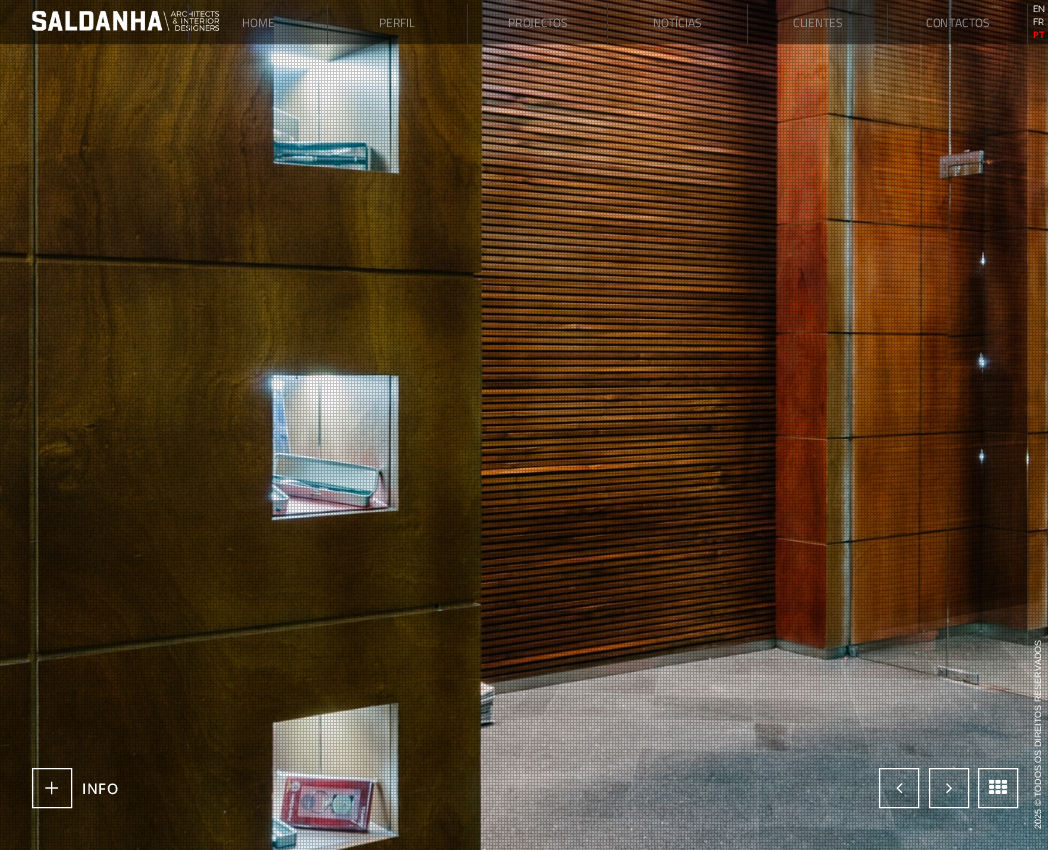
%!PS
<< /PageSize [1048 850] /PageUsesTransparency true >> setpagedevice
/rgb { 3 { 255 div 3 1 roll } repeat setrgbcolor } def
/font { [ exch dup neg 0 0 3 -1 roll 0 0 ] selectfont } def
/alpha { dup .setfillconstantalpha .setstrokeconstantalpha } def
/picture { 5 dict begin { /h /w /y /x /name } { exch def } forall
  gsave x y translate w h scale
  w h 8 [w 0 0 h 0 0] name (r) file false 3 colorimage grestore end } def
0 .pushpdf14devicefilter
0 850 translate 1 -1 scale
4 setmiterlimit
255 255 255 rgb
0 0 1048 850 rectfill
(img/2.rgb) 0 0 1048 850 picture
(img/3.rgb) 0 0 1048 850 picture
0.5 alpha
0 0 0 rgb
0 0 1048 44 rectfill
1 alpha
(img/1.rgb) 32 11 187 20 picture
53 53 53 rgb
328 4 moveto 328 46 lineto 327 42 lineto 327 4 lineto closepath fill
188 46 moveto 188 4 lineto 189 4 lineto 189 42 lineto closepath fill
468 4 moveto 468 46 lineto 467 42 lineto 467 4 lineto closepath fill
608 4 moveto 608 46 lineto 607 42 lineto 607 4 lineto closepath fill
748 4 moveto 748 46 lineto 747 42 lineto 747 4 lineto closepath fill
888 4 moveto 888 46 lineto 887 42 lineto 887 4 lineto closepath fill
1028 4 moveto 1028 46 lineto 1027 42 lineto 1027 4 lineto closepath fill
255 255 255 rgb
879.5 768.5 39 39 rectstroke
(img/4.rgb) 896 783 7 11 picture
929.5 768.5 39 39 rectstroke
(img/5.rgb) 946 783 6 11 picture
32.5 768.5 39 39 rectstroke
978.5 768.5 39 39 rectstroke
(img/6.rgb) 989 779 18 15 picture
0.08 alpha
1027 74 1 776 rectfill
/TitilliumWeb-Regular 12 font
1 alpha
144 144 144 rgb
[
  [(HOME) 242 27]
  [(PERFIL) 379 27]
  [(PROJECTOS) 508 27]
  [(NOTÍCIAS) 653 27]
  [(CLIENTES) 793 27]
  [(CONTACTOS) 926 27]
] { aload pop moveto show } forall
/Raleway-Regular 9 font
255 255 255 rgb
1033 12 moveto (EN) show
1033 25 moveto (FR) show
/Raleway-Bold 9 font
255 0 0 rgb
1033 38 moveto (PT) show
/LiberationSerif-Regular 27 font
255 255 255 rgb
44 797 moveto (+) show
/OpenSans-Bold 14 font
82 794 moveto 1 0 (INFO) ashow
/LiberationSans-Regular 9 font
gsave 1041 829 translate -90 rotate 0 0 moveto (2025 © TODOS OS DIREITOS RESERVADOS) show grestore
.poppdf14devicefilter showpage
